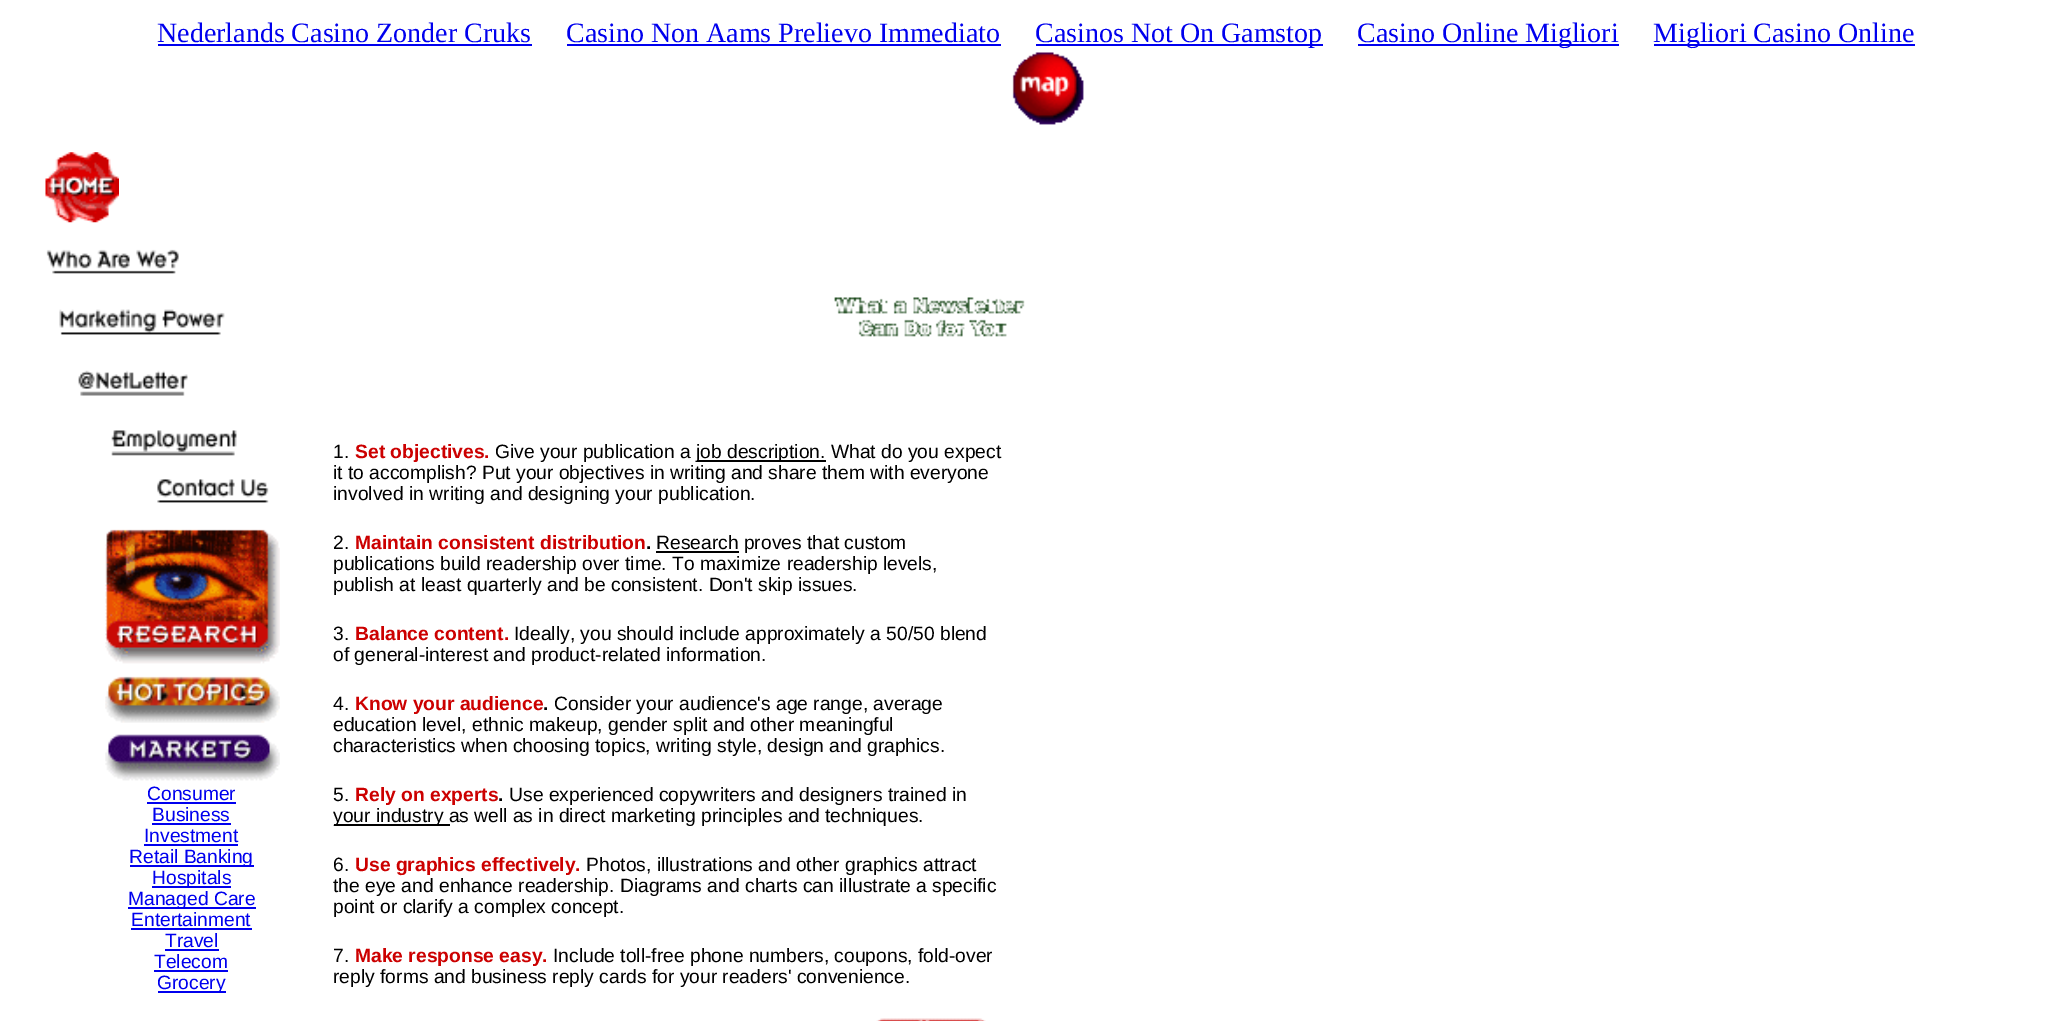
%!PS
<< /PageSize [2071 1021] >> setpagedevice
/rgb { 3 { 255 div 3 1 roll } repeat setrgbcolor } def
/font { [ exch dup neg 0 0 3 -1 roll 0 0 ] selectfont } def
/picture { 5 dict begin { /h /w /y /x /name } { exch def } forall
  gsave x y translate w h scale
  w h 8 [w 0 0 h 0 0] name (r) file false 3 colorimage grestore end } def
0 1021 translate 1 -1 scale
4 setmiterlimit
255 255 255 rgb
0 0 2071 1021 rectfill
[
  [158 44 374 2 0 0 238]
  [567 44 434 2 0 0 238]
  [1036 44 287 2 0 0 238]
  [1358 44 261 2 0 0 238]
  [1654 44 261 2 0 0 238]
] { aload pop rgb rectfill } forall
(img/1.rgb) 1012 52 72 73 picture
(img/2.rgb) 45 152 74 71 picture
(img/3.rgb) 46 249 133 25 picture
(img/4.rgb) 59 309 210 194 picture
(img/5.rgb) 834 297 191 40 picture
(img/6.rgb) 105 529 175 135 picture
[
  [697 460 129 2 0 0 0]
  [656 551 83 2 0 0 0]
  [334 824 116 2 0 0 0]
] { aload pop rgb rectfill } forall
(img/7.rgb) 876 1018 110 3 picture
(img/8.rgb) 105 676 175 47 picture
(img/9.rgb) 105 734 175 47 picture
[
  [147 802 89 2 0 0 238]
  [152 823 79 2 0 0 238]
  [144 844 94 2 0 0 238]
  [130 865 124 2 0 0 238]
  [152 886 79 2 0 0 238]
  [128 907 128 2 0 0 238]
  [131 928 121 2 0 0 238]
  [165 949 54 2 0 0 238]
  [154 970 74 2 0 0 238]
  [158 991 68 2 0 0 238]
] { aload pop rgb rectfill } forall
/LiberationSerif-Regular 28 font
[
  [(Nederlands Casino Zonder Cruks) 157 42]
  [(Casino Non Aams Prelievo Immediato) 566 42]
  [(Casinos Not On Gamstop) 1035 42]
  [(Casino Online Migliori) 1357 42]
  [(Migliori Casino Online) 1653 42]
] { aload pop moveto show } forall
/LiberationSans-Regular 19.25 font
0 0 0 rgb
333 458 moveto (1.) show
/LiberationSans-Bold 19.25 font
204 0 0 rgb
355 458 moveto (Set objectives.) show
/LiberationSans-Regular 19.25 font
0 0 0 rgb
[
  [(Give your publication a) 495 458]
  [(job description. What do you expect) 696 458]
  [(it to accomplish? Put your objectives in writing and share them with everyone) 333 479]
  [(involved in writing and designing your publication.) 333 500]
  [(2.) 333 549]
] { aload pop moveto show } forall
/LiberationSans-Bold 19.25 font
204 0 0 rgb
355 549 moveto (Maintain consistent distribution) show
0 0 0 rgb
646 549 moveto (.) show
/LiberationSans-Regular 19.25 font
[
  [(Research proves that custom) 656 549]
  [(publications build readership over time. To maximize readership levels,) 333 570]
  [(publish at least quarterly and be consistent. Don't skip issues.) 333 591]
  [(3.) 333 640]
] { aload pop moveto show } forall
/LiberationSans-Bold 19.25 font
204 0 0 rgb
355 640 moveto (Balance content.) show
/LiberationSans-Regular 19.25 font
0 0 0 rgb
[
  [(Ideally, you should include approximately a 50/50 blend) 514 640]
  [(of general-interest and product-related information.) 333 661]
  [(4.) 333 710]
] { aload pop moveto show } forall
/LiberationSans-Bold 19.25 font
204 0 0 rgb
355 710 moveto (Know your audience) show
0 0 0 rgb
543 710 moveto (.) show
/LiberationSans-Regular 19.25 font
[
  [(Consider your audience's age range, average) 554 710]
  [(education level, ethnic makeup, gender split and other meaningful) 333 731]
  [(characteristics when choosing topics, writing style, design and graphics.) 333 752]
  [(5.) 333 801]
] { aload pop moveto show } forall
/LiberationSans-Bold 19.25 font
204 0 0 rgb
355 801 moveto (Rely on experts) show
0 0 0 rgb
498 801 moveto (.) show
/LiberationSans-Regular 19.25 font
[
  [(Use experienced copywriters and designers trained in) 509 801]
  [(your industry as well as in direct marketing principles and techniques.) 333 822]
  [(6.) 333 871]
] { aload pop moveto show } forall
/LiberationSans-Bold 19.25 font
204 0 0 rgb
355 871 moveto (Use graphics effectively.) show
/LiberationSans-Regular 19.25 font
0 0 0 rgb
[
  [(Photos, illustrations and other graphics attract) 586 871]
  [(the eye and enhance readership. Diagrams and charts can illustrate a specific) 333 892]
  [(point or clarify a complex concept.) 333 913]
  [(7.) 333 962]
] { aload pop moveto show } forall
/LiberationSans-Bold 19.25 font
204 0 0 rgb
355 962 moveto (Make response easy.) show
/LiberationSans-Regular 19.25 font
0 0 0 rgb
553 962 moveto (Include toll-free phone numbers, coupons, fold-over) show
333 983 moveto (reply forms and business reply cards for your readers' convenience.) show
0 0 238 rgb
[
  [(Consumer) 147 800]
  [(Business) 152 821]
  [(Investment) 144 842]
  [(Retail Banking) 129 863]
  [(Hospitals) 152 884]
  [(Managed Care) 128 905]
  [(Entertainment) 131 926]
  [(Travel) 165 947]
  [(Telecom) 154 968]
  [(Grocery) 157 989]
] { aload pop moveto show } forall
showpage
